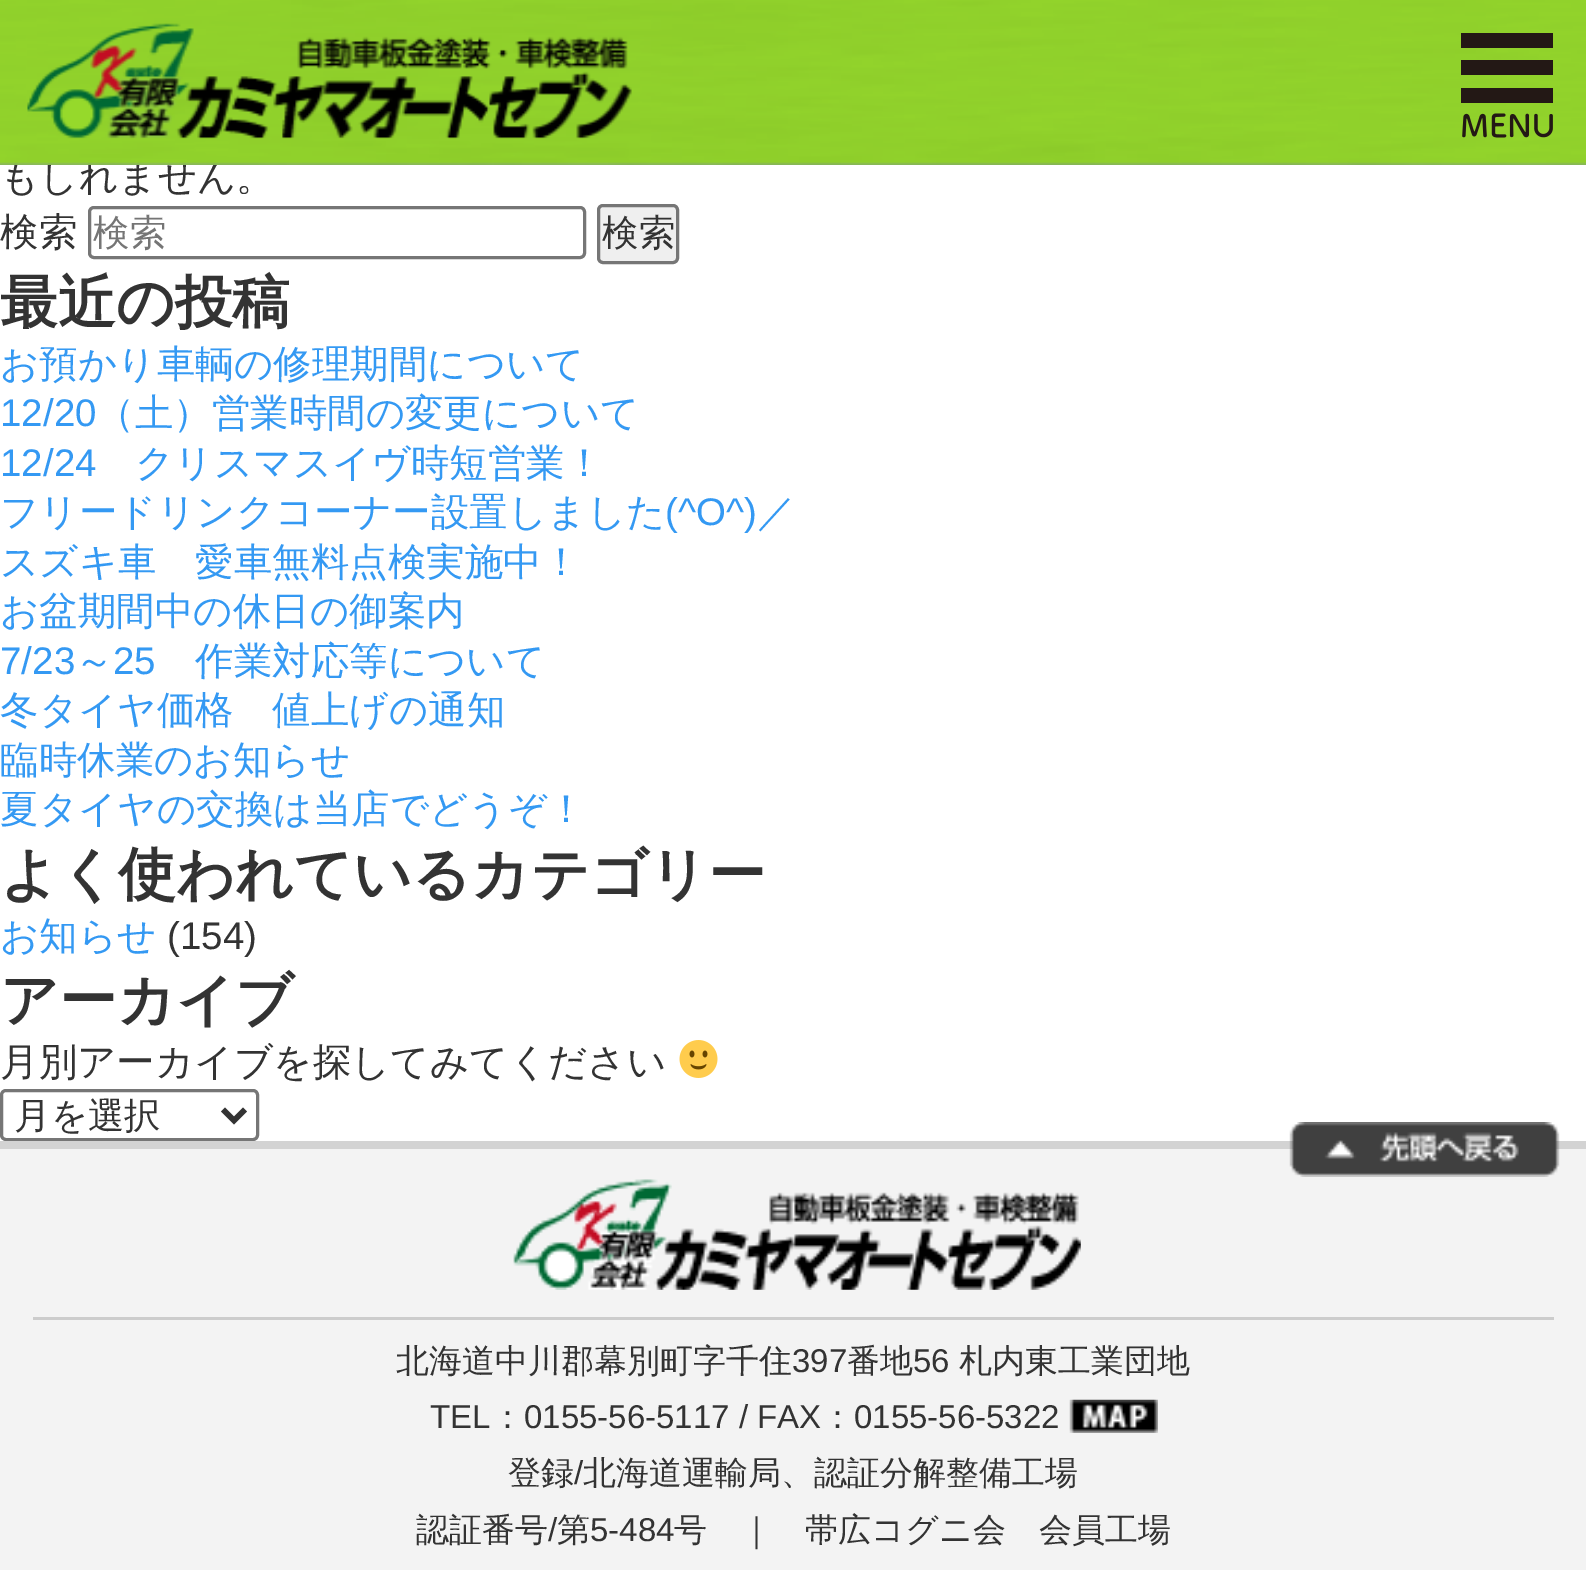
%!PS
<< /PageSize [1586 1570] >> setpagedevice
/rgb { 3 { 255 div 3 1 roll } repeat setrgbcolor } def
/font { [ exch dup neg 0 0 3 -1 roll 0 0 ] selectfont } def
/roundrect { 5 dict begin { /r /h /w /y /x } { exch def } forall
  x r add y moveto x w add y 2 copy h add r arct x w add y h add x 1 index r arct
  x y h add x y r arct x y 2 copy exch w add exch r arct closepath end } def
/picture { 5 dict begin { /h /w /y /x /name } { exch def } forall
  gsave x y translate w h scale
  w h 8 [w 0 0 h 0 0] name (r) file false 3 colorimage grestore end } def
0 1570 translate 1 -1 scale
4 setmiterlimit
255 255 255 rgb
0 0 1586 1570 rectfill
118 118 118 rgb
3 setlinewidth
89.5 207.5 495 50 4.5 roundrect stroke
239 239 239 rgb
598.5 205.5 79 57 4.5 roundrect gsave fill grestore
118 118 118 rgb
stroke
(img/4.rgb) 679 1040 39 38 picture
1.5 1090.5 256 49 4.5 roundrect stroke
51 51 51 rgb
5.5 setlinewidth
223 1109.5 moveto 234 1120.5 lineto 245 1109.5 lineto stroke
243 243 243 rgb
0 1149 1586 421 rectfill
211 211 211 rgb
0 1141 1586 8 rectfill
(img/5.rgb) 1289 1122 271 55 picture
204 204 204 rgb
33 1317 1521 3 rectfill
(img/6.rgb) 513 1179 568 111 picture
(img/7.rgb) 1069 1399 89 34 picture
/WenQuanYiZenHei-Medium 38.5 font
51 51 51 rgb
0 190 moveto (もしれません。) show
(img/1.rgb) 0 0 1586 165 picture
(img/3.rgb) 1461 33 92 105 picture
(img/2.rgb) 27 23 605 116 picture
0 245 moveto (検索) show
/WenQuanYiZenHei-Medium 36.5 font
117 117 117 rgb
93 245 moveto (検索) show
51 51 51 rgb
602 245 moveto (検索) show
/WenQuanYiZenHei-Bold 57.75 font
0 322 moveto (最近の投稿) show
/WenQuanYiZenHei-Medium 38.5 font
52 153 243 rgb
0 377 moveto (お預かり車輌の修理期間について) show
/LiberationSans-Regular 38.5 font
0 426 moveto (12/20) show
/WenQuanYiZenHei-Medium 38.5 font
96 426 moveto (（土）営業時間の変更について) show
/LiberationSans-Regular 38.5 font
0 476 moveto (12/24) show
/WenQuanYiZenHei-Medium 38.5 font
135 476 moveto (クリスマスイヴ時短営業！) show
0 525 moveto (フリードリンクコーナー設置しました) show
/LiberationSans-Regular 38.5 font
665 525 moveto (\(^O^\)) show
/WenQuanYiZenHei-Medium 38.5 font
[
  [(／) 757 525]
  [(スズキ車　愛車無料点検実施中！) 0 575]
  [(お盆期間中の休日の御案内) 0 624]
] { aload pop moveto show } forall
/LiberationSans-Regular 38.5 font
0 674 moveto (7/23) show
/WenQuanYiZenHei-Medium 38.5 font
75 674 moveto (～) show
/LiberationSans-Regular 38.5 font
113 674 moveto (25) show
/WenQuanYiZenHei-Medium 38.5 font
[
  [(作業対応等について) 195 674]
  [(冬タイヤ価格　値上げの通知) 0 723]
  [(臨時休業のお知らせ) 0 773]
  [(夏タイヤの交換は当店でどうぞ！) 0 822]
] { aload pop moveto show } forall
/WenQuanYiZenHei-Bold 57.75 font
51 51 51 rgb
0 894 moveto (よく使われているカテゴリー) show
/WenQuanYiZenHei-Medium 38.5 font
52 153 243 rgb
0 949 moveto (お知らせ) show
/LiberationSans-Regular 38.5 font
51 51 51 rgb
167 949 moveto (\(154\)) show
/WenQuanYiZenHei-Bold 57.75 font
0 1020 moveto (アーカイブ) show
/WenQuanYiZenHei-Medium 38.5 font
0 1075 moveto (月別アーカイブを探してみてください) show
/WenQuanYiZenHei-Medium 36.5 font
14 1128 moveto (月を選択) show
/WenQuanYiZenHei-Medium 33 font
396 1372 moveto (北海道中川郡幕別町字千住) show
/LiberationSans-Regular 33 font
792 1372 moveto (397) show
/WenQuanYiZenHei-Medium 33 font
847 1372 moveto (番地) show
/LiberationSans-Regular 33 font
913 1372 moveto (56) show
/WenQuanYiZenHei-Medium 33 font
959 1372 moveto (札内東工業団地) show
/LiberationSans-Regular 33 font
430 1428 moveto (TEL) show
/WenQuanYiZenHei-Medium 33 font
491 1428 moveto (：) show
/LiberationSans-Regular 33 font
524 1428 moveto (0155-56-5117 / FAX) show
/WenQuanYiZenHei-Medium 33 font
821 1428 moveto (：) show
/LiberationSans-Regular 33 font
854 1428 moveto (0155-56-5322) show
/WenQuanYiZenHei-Medium 33 font
508 1484 moveto (登録) show
/LiberationSans-Regular 33 font
574 1484 moveto (/) show
/WenQuanYiZenHei-Medium 33 font
583 1484 moveto (北海道運輸局、認証分解整備工場) show
416 1541 moveto (認証番号) show
/LiberationSans-Regular 33 font
548 1541 moveto (/) show
/WenQuanYiZenHei-Medium 33 font
557 1541 moveto (第) show
/LiberationSans-Regular 33 font
590 1541 moveto (5-484) show
/WenQuanYiZenHei-Medium 33 font
674 1541 moveto (号　｜　帯広コグニ会　会員工場) show
showpage
